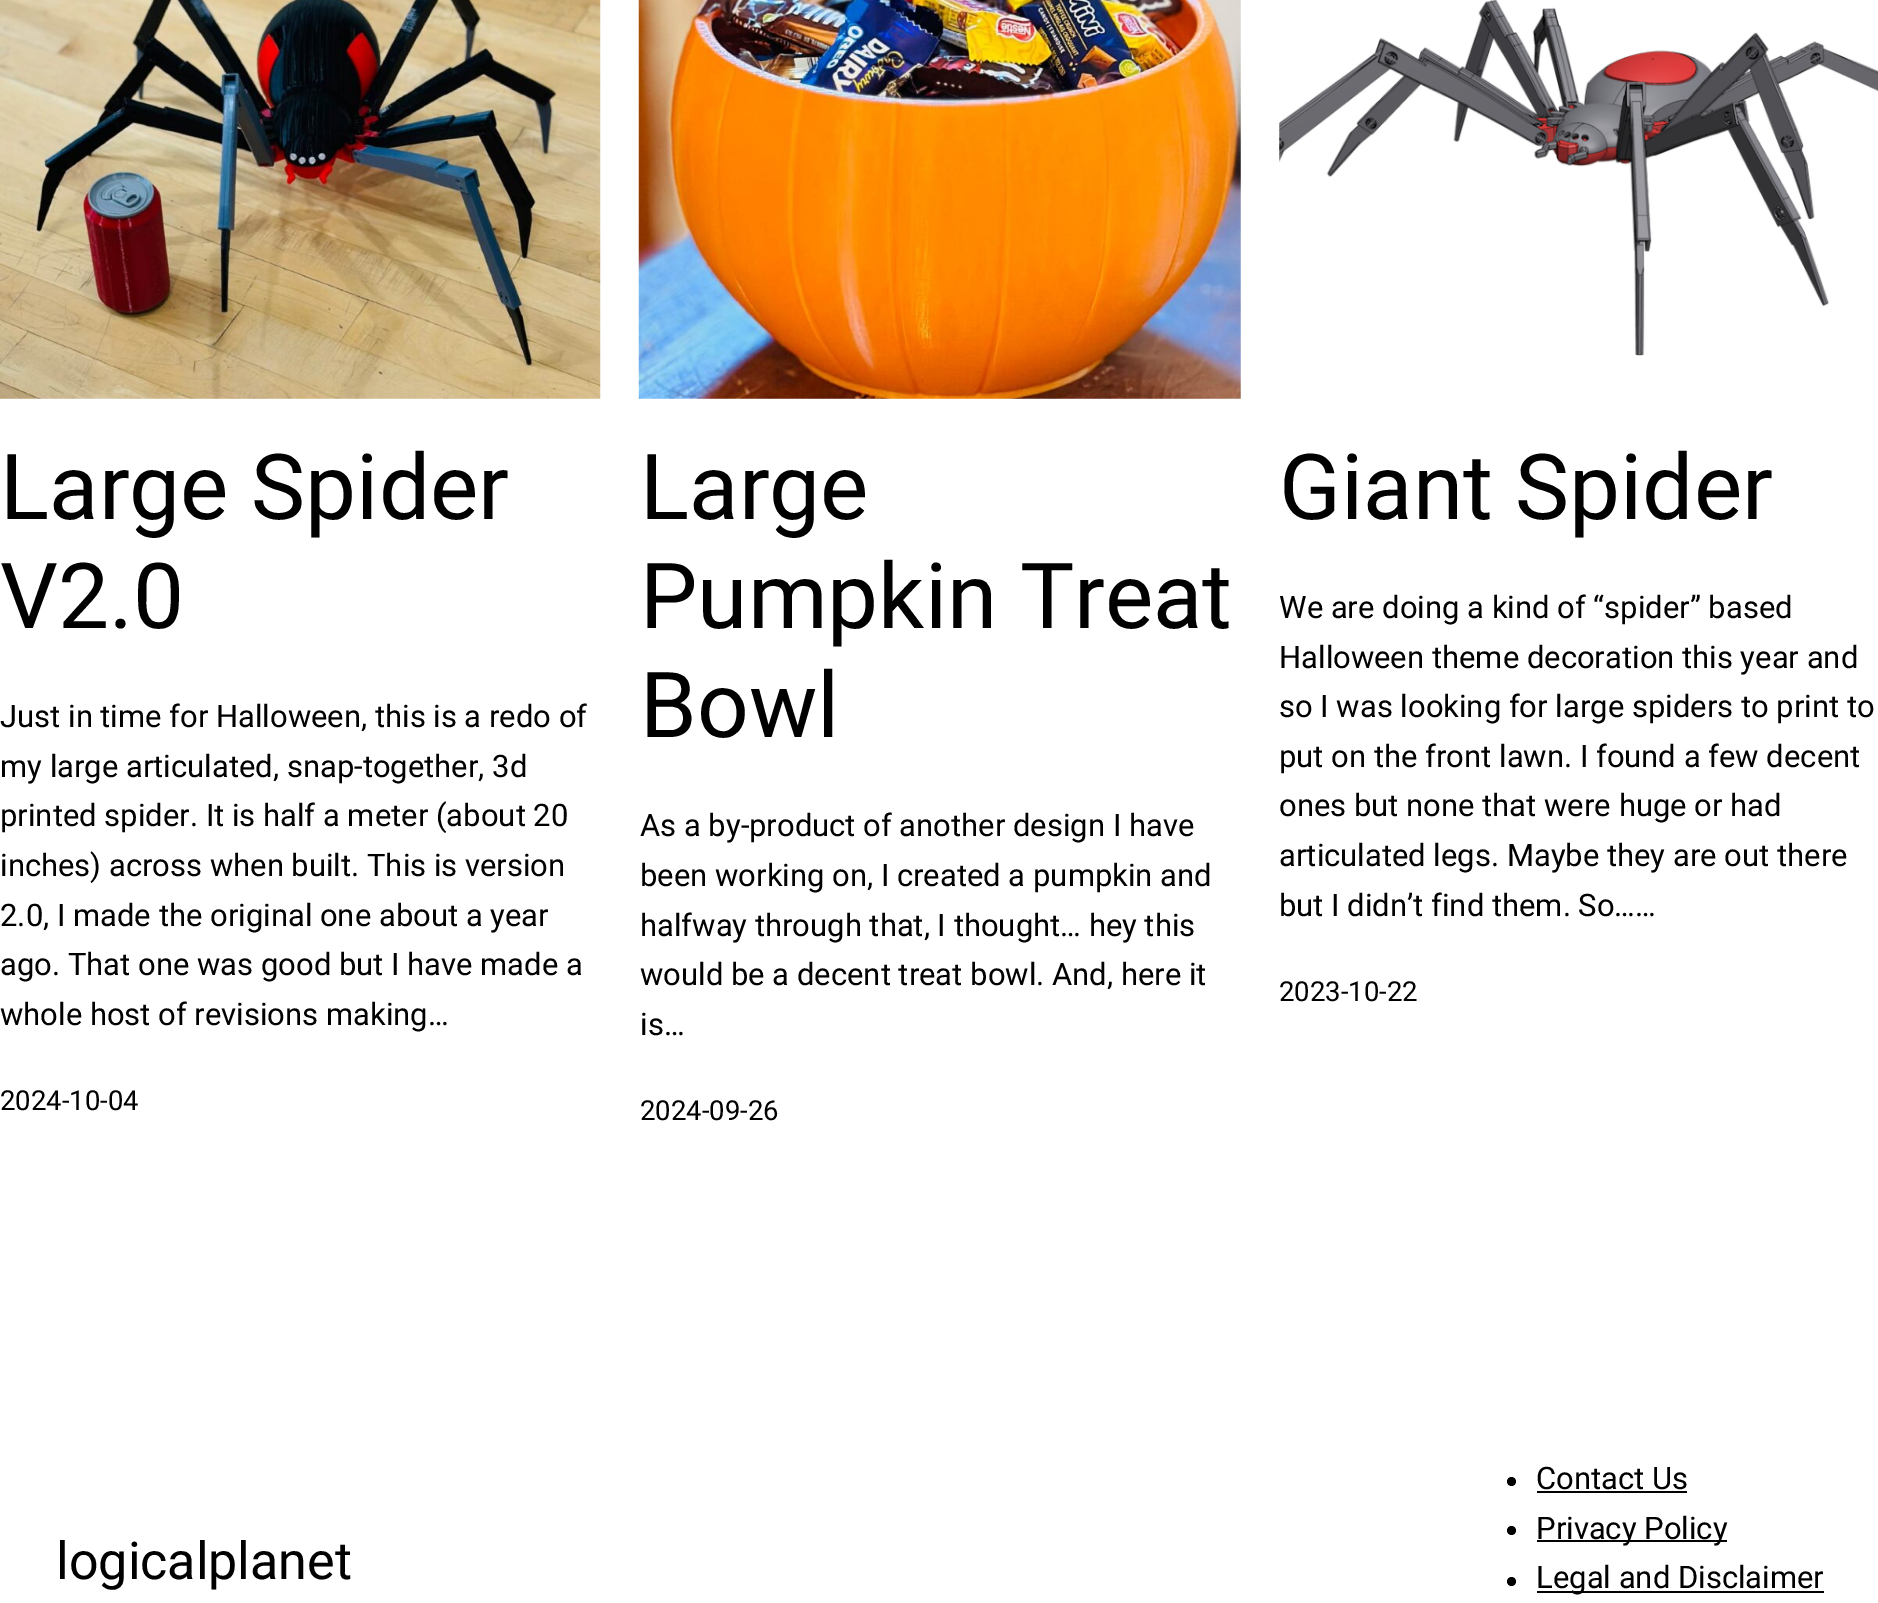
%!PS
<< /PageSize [1878 1603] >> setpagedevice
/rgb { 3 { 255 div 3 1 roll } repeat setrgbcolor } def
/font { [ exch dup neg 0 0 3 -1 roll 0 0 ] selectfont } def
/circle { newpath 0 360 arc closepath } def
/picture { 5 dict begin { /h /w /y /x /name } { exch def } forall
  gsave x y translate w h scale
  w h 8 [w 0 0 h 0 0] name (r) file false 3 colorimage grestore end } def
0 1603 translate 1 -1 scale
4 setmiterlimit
255 255 255 rgb
0 0 1878 1603 rectfill
(img/1.rgb) 0 0 601 399 picture
(img/2.rgb) 638 0 603 399 picture
(img/3.rgb) 1279 0 599 356 picture
0 0 0 rgb
1511.5 1481.5 4.5 circle fill
1537 1491 150 2 rectfill
1511.5 1530.5 4.5 circle fill
1537 1540 190 2 rectfill
1511.5 1581.5 4.5 circle fill
1537 1591 287 2 rectfill
/Roboto-Regular 91 font
0 519 moveto (Large Spider) show
0 628 moveto (V2.0) show
/Roboto-Regular 31 font
[
  [(Just in time for Halloween, this is a redo of) 0 727]
  [(my large articulated, snap-together, 3d) 0 777]
  [(printed spider. It is half a meter \(about 20) 0 826]
  [(inches\) across when built. This is version) 0 876]
  [(2.0, I made the original one about a year) 0 926]
  [(ago. That one was good but I have made a) 0 975]
  [(whole host of revisions making…) 0 1025]
] { aload pop moveto show } forall
/Roboto-Regular 27.5 font
0 1110 moveto (2024-10-04) show
/Roboto-Regular 91 font
[
  [(Large) 640 519]
  [(Pumpkin Treat) 640 628]
  [(Bowl) 640 737]
] { aload pop moveto show } forall
/Roboto-Regular 31 font
[
  [(As a by-product of another design I have) 640 836]
  [(been working on, I created a pumpkin and) 640 886]
  [(halfway through that, I thought… hey this) 640 936]
  [(would be a decent treat bowl. And, here it) 640 985]
  [(is…) 640 1035]
] { aload pop moveto show } forall
/Roboto-Regular 27.5 font
640 1120 moveto (2024-09-26) show
/Roboto-Regular 91 font
1279 519 moveto (Giant Spider) show
/Roboto-Regular 31 font
[
  [(We are doing a kind of “spider” based) 1279 618]
  [(Halloween theme decoration this year and) 1279 668]
  [(so I was looking for large spiders to print to) 1279 717]
  [(put on the front lawn. I found a few decent) 1279 767]
  [(ones but none that were huge or had) 1279 816]
  [(articulated legs. Maybe they are out there) 1279 866]
  [(but I didn’t find them. So……) 1279 916]
] { aload pop moveto show } forall
/Roboto-Regular 27.5 font
1279 1001 moveto (2023-10-22) show
/Roboto-Regular 52 font
56 1579 moveto (logicalplanet) show
/Roboto-Regular 31 font
[
  [(Contact Us) 1536 1489]
  [(Privacy Policy) 1536 1539]
  [(Legal and Disclaimer) 1536 1588]
] { aload pop moveto show } forall
showpage
